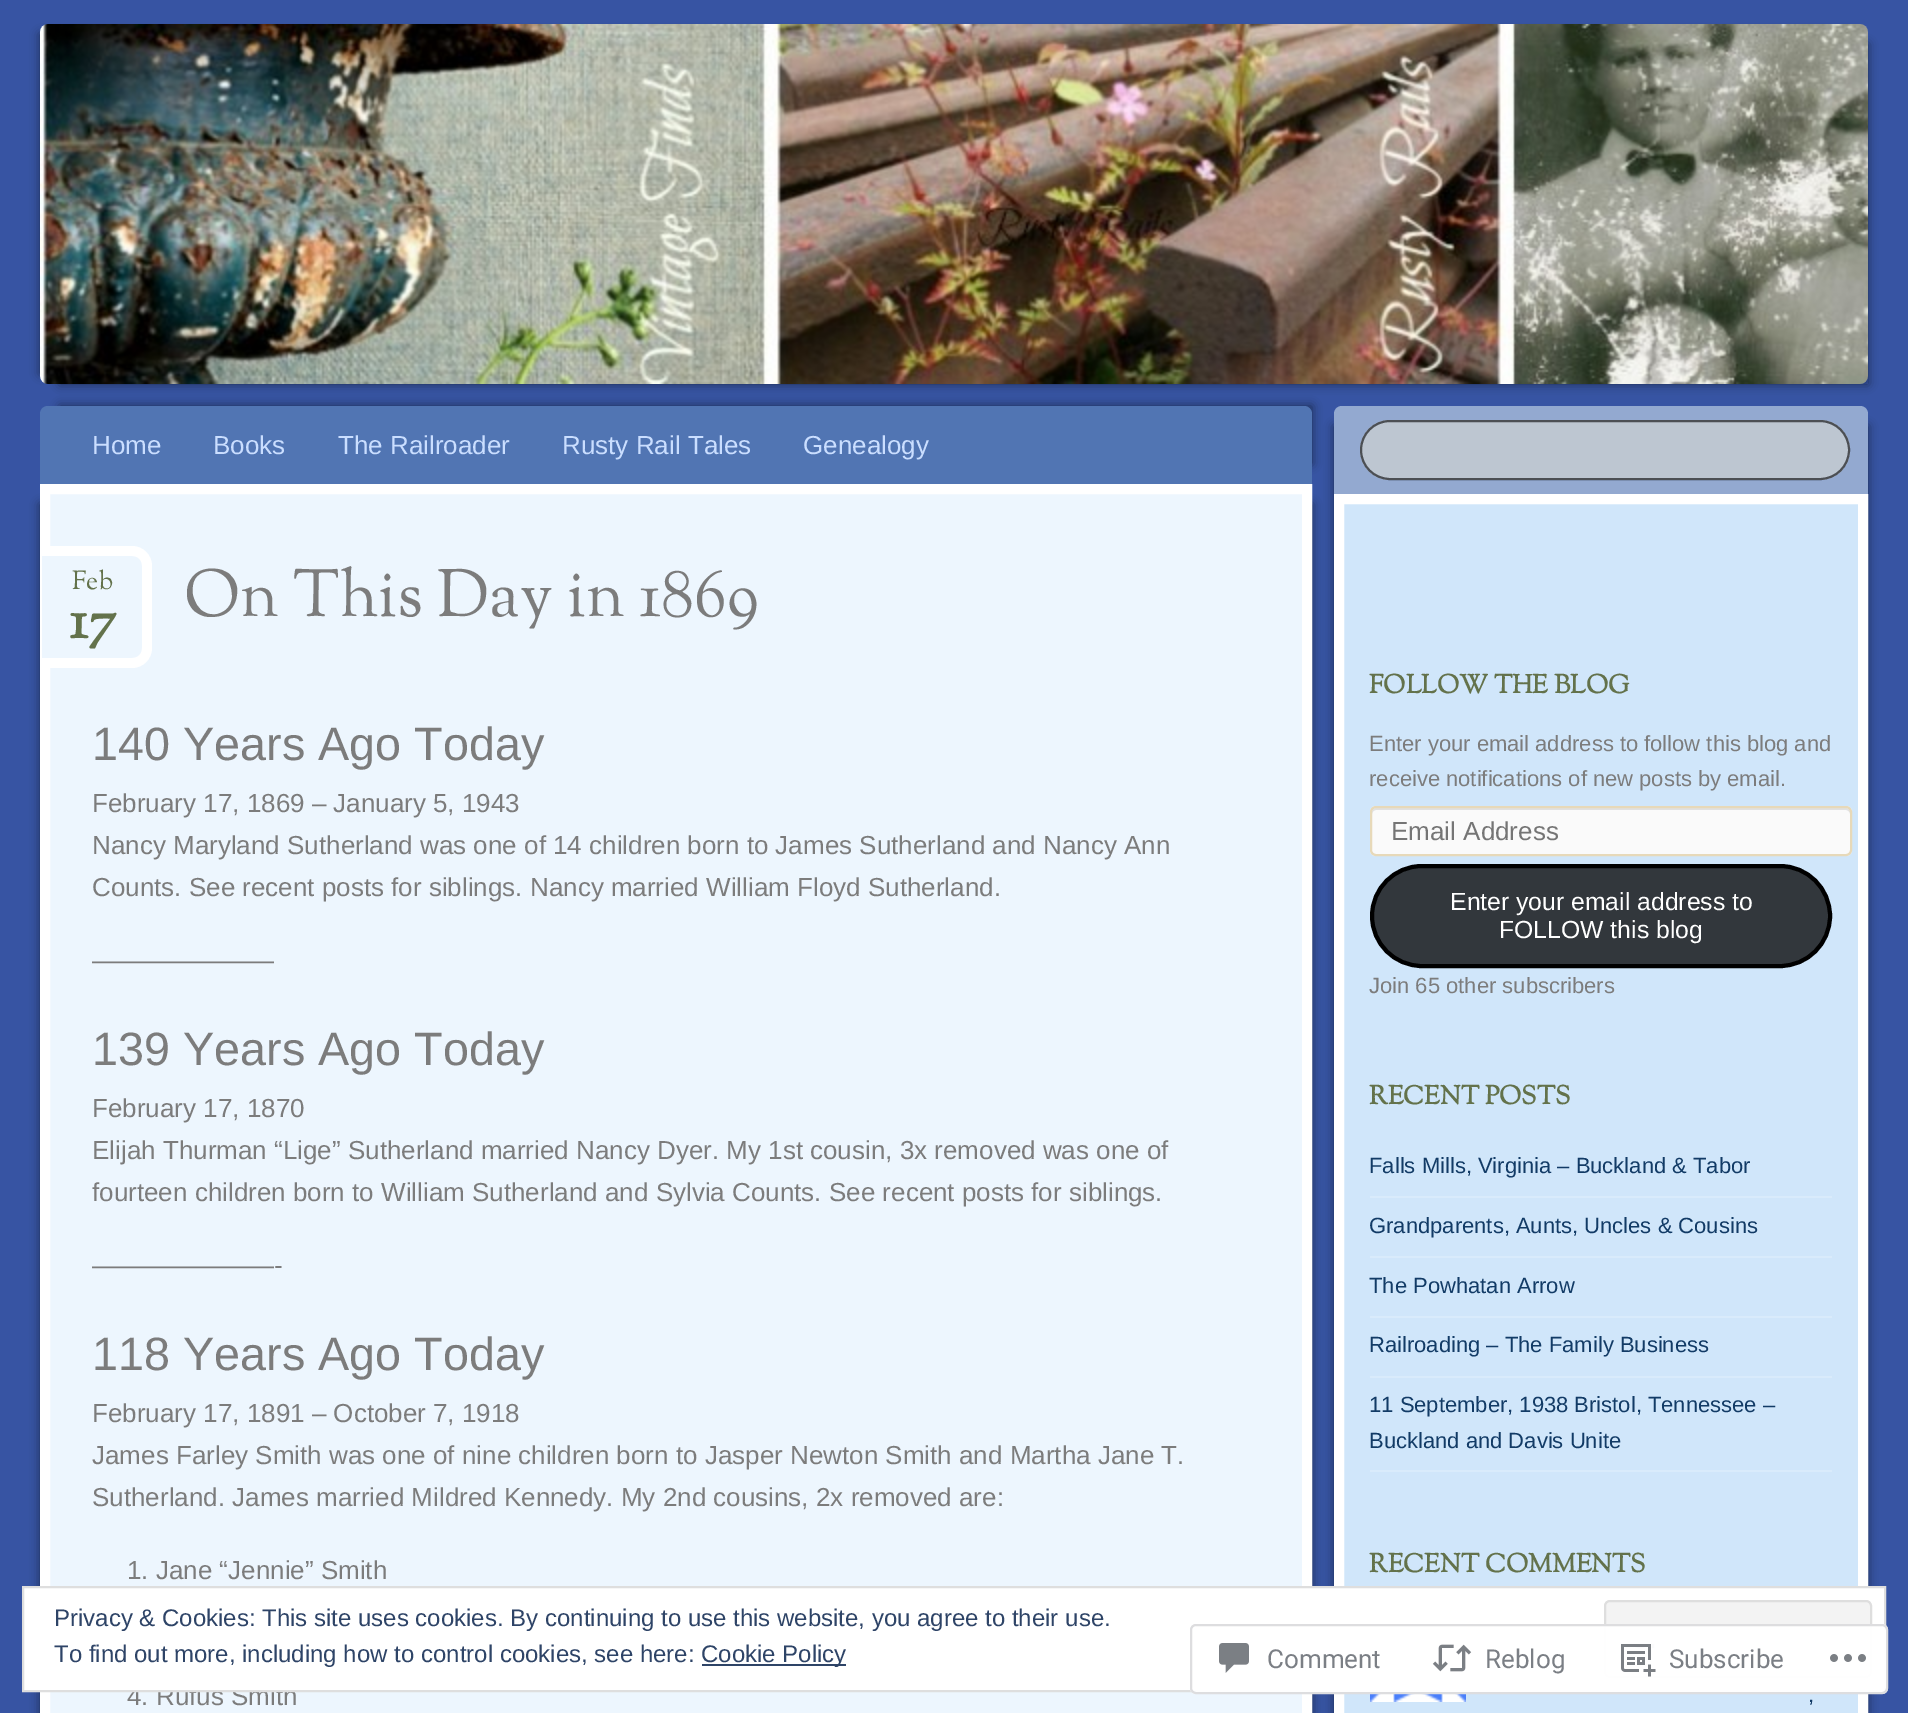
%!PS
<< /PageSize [1908 1713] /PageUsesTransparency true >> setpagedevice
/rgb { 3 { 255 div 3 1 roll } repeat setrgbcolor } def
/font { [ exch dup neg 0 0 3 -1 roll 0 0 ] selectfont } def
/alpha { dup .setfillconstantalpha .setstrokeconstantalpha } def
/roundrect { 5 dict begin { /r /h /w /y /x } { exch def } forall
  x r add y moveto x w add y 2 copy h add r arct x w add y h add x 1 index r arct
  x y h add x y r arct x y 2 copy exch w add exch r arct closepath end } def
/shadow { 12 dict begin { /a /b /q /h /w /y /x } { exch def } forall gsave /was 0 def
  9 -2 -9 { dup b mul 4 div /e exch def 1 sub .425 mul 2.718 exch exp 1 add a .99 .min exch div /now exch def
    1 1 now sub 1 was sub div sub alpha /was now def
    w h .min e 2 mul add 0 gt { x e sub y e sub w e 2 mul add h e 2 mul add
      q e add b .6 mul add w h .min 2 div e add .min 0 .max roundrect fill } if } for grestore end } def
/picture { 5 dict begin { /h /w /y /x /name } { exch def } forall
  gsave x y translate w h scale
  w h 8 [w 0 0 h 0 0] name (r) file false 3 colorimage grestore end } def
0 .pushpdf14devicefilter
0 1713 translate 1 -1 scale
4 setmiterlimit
55 84 163 rgb
0 0 1908 1713 rectfill
0 0 0 rgb
40 34 1808 340 0 5 0.5 shadow
60 44 1808 340 0 5 0.5 shadow
(img/1.rgb) 40 24 1828 360 picture
60 406 1252 58 0 5 0.5 shadow
81 117 179 rgb
48 406 moveto 1304 406 lineto 1308.5 406 1312 409.5 1312 414 curveto 1312 484 lineto 40 484 lineto 40 414 lineto 40 409.5 43.5 406 48 406 curveto closepath fill
0 0 0 rgb
40 504 1252 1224 0 5 0.5 shadow
60 504 1252 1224 0 5 0.5 shadow
237 246 254 rgb
45 489 moveto 1307 489 lineto 1307 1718 lineto 45 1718 lineto closepath gsave fill grestore
255 255 255 rgb
10 setlinewidth
stroke
237 246 254 rgb
42 556 moveto 132 556 lineto 137.5 556 142 560.5 142 566 curveto 142 648 lineto 142 653.5 137.5 658 132 658 curveto 42 658 lineto closepath fill
255 255 255 rgb
42 546 moveto 132 546 lineto 143 546 152 555 152 566 curveto 152 648 lineto 152 659 143 668 132 668 curveto 42 668 lineto closepath 42 556 moveto 132 556 lineto 138 556 142 560 142 566 curveto 142 648 lineto 142 654 138 658 132 658 curveto 42 658 lineto closepath eofill
0 0 0 rgb
1334 426 514 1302 0 5 0.5 shadow
1354 426 514 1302 0 5 0.5 shadow
147 169 208 rgb
1342 406 moveto 1860 406 lineto 1864.5 406 1868 409.5 1868 414 curveto 1868 494 lineto 1334 494 lineto 1334 414 lineto 1334 409.5 1337.5 406 1342 406 curveto closepath fill
189 198 209 rgb
1360 420 490 60 30 roundrect fill
0.6 alpha
0 0 0 rgb
2 setlinewidth
1361 421 488 58 29 roundrect stroke
1 alpha
208 230 250 rgb
1339 499 moveto 1863 499 lineto 1863 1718 lineto 1339 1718 lineto closepath gsave fill grestore
255 255 255 rgb
10 setlinewidth
stroke
250 250 250 rgb
1370 806 482 50 6 roundrect fill
225 225 225 rgb
1376 810 moveto 1846 810 lineto 1848 810 1850 812 1850 814 curveto 1850 812 lineto 1850 810 1848 808 1846 808 curveto 1376 808 lineto 1374 808 1372 810 1372 812 curveto 1372 814 lineto 1372 812 1374 810 1376 810 curveto closepath fill
231 217 185 rgb
2 setlinewidth
1371 807 480 48 5 roundrect stroke
50 55 60 rgb
1372 866 458 100 50 roundrect gsave fill grestore
0 0 0 rgb
4 setlinewidth
stroke
[
  [1370 1196 462 2 217 235 251]
  [1370 1256 462 2 217 235 251]
  [1370 1316 462 2 217 235 251]
  [1370 1376 462 2 217 235 251]
  [1370 1470 462 2 217 235 251]
] { aload pop rgb rectfill } forall
(img/2.rgb) 1370 1692 96 10 picture
/LiberationSans-Regular 26 font
202 222 255 rgb
[
  [(Home) 92 454]
  [(Books) 213 454]
  [(The Railroader) 338 454]
  [(Rusty Rail Tales) 562 454]
  [(Genealogy) 803 454]
] { aload pop moveto show } forall
/SortsMillGoudy-Regular 26 font
99 114 75 rgb
72 589 moveto (Feb) show
/SortsMillGoudy-Bold 56 font
69 638 moveto (17) show
/SortsMillGoudy-Regular 66 font
124 124 124 rgb
184 616 moveto (On This Day in 1869) show
/LiberationSans-Regular 46.75 font
92 760 moveto (140 Years Ago Today) show
/LiberationSans-Regular 26 font
[
  [(February 17, 1869 – January 5, 1943) 92 812]
  [(Nancy Maryland Sutherland was one of 14 children born to James Sutherland and Nancy Ann) 92 854]
  [(Counts. See recent posts for siblings. Nancy married William Floyd Sutherland.) 92 896]
  [(———————) 92 969]
] { aload pop moveto show } forall
/LiberationSans-Regular 46.75 font
92 1065 moveto (139 Years Ago Today) show
/LiberationSans-Regular 26 font
[
  [(February 17, 1870) 92 1117]
  [(Elijah Thurman “Lige” Sutherland married Nancy Dyer. My 1st cousin, 3x removed was one of) 92 1159]
  [(fourteen children born to William Sutherland and Sylvia Counts. See recent posts for siblings.) 92 1201]
  [(———————-) 92 1274]
] { aload pop moveto show } forall
/LiberationSans-Regular 46.75 font
92 1370 moveto (118 Years Ago Today) show
/LiberationSans-Regular 26 font
[
  [(February 17, 1891 – October 7, 1918) 92 1422]
  [(James Farley Smith was one of nine children born to Jasper Newton Smith and Martha Jane T.) 92 1464]
  [(Sutherland. James married Mildred Kennedy. My 2nd cousins, 2x removed are:) 92 1506]
  [(1. Jane “Jennie” Smith) 127 1579]
  [(4. Rufus Smith) 127 1705]
] { aload pop moveto show } forall
/SortsMillGoudy-Bold 26 font
99 114 75 rgb
1369 693 moveto (FOLLOW THE BLOG) show
/LiberationSans-Regular 22 font
124 124 124 rgb
1369 751 moveto (Enter your email address to follow this blog and) show
1369 786 moveto (receive notifications of new posts by email.) show
/LiberationSans-Regular 26 font
117 117 117 rgb
1391 840 moveto (Email Address) show
/LiberationSans-Regular 24.75 font
255 255 255 rgb
1450 910 moveto (Enter your email address to) show
1499 938 moveto (FOLLOW this blog) show
/LiberationSans-Regular 22 font
124 124 124 rgb
1369 993 moveto (Join 65 other subscribers) show
/SortsMillGoudy-Bold 26 font
99 114 75 rgb
1369 1104 moveto (RECENT POSTS) show
/LiberationSans-Regular 22 font
18 59 102 rgb
[
  [(Falls Mills, Virginia – Buckland & Tabor) 1369 1173]
  [(Grandparents, Aunts, Uncles & Cousins) 1369 1233]
  [(The Powhatan Arrow) 1369 1293]
  [(Railroading – The Family Business) 1369 1352]
  [(11 September, 1938 Bristol, Tennessee –) 1369 1412]
  [(Buckland and Davis Unite) 1369 1448]
] { aload pop moveto show } forall
/SortsMillGoudy-Bold 26 font
99 114 75 rgb
1369 1572 moveto (RECENT COMMENTS) show
/LiberationSans-Regular 22 font
18 59 102 rgb
1808 1702 moveto (,) show
255 255 255 rgb
23 1587 moveto 1885 1587 lineto 1885 1691 lineto 23 1691 lineto closepath gsave fill grestore
222 222 222 rgb
2 setlinewidth
stroke
/LiberationSans-Regular 24 font
46 68 103 rgb
54 1626 moveto (Privacy & Cookies: This site uses cookies. By continuing to use this website, you agree to their use.) show
243 243 243 rgb
1605 1601 266 76 5 roundrect gsave fill grestore
222 222 222 rgb
stroke
46 68 103 rgb
54 1662 moveto (To find out more, including how to control cookies, see here:) show
702 1664 144 2 rectfill
701 1662 moveto (Cookie Policy) show
0.98 alpha
255 255 255 rgb
1190 1624 698 70 6 roundrect fill
220 220 222 rgb
1191 1625 696 68 5 roundrect stroke
1 alpha
(img/3.rgb) 1219 1643 30 30 picture
/Roboto-Regular 26 font
123 127 133 rgb
1267 1668 moveto (Comment) show
(img/4.rgb) 1432 1644 40 28 picture
1485 1668 moveto (Reblog) show
(img/5.rgb) 1621 1644 35 33 picture
1669 1668 moveto (Subscribe) show
(img/6.rgb) 1830 1654 36 8 picture
.poppdf14devicefilter showpage
